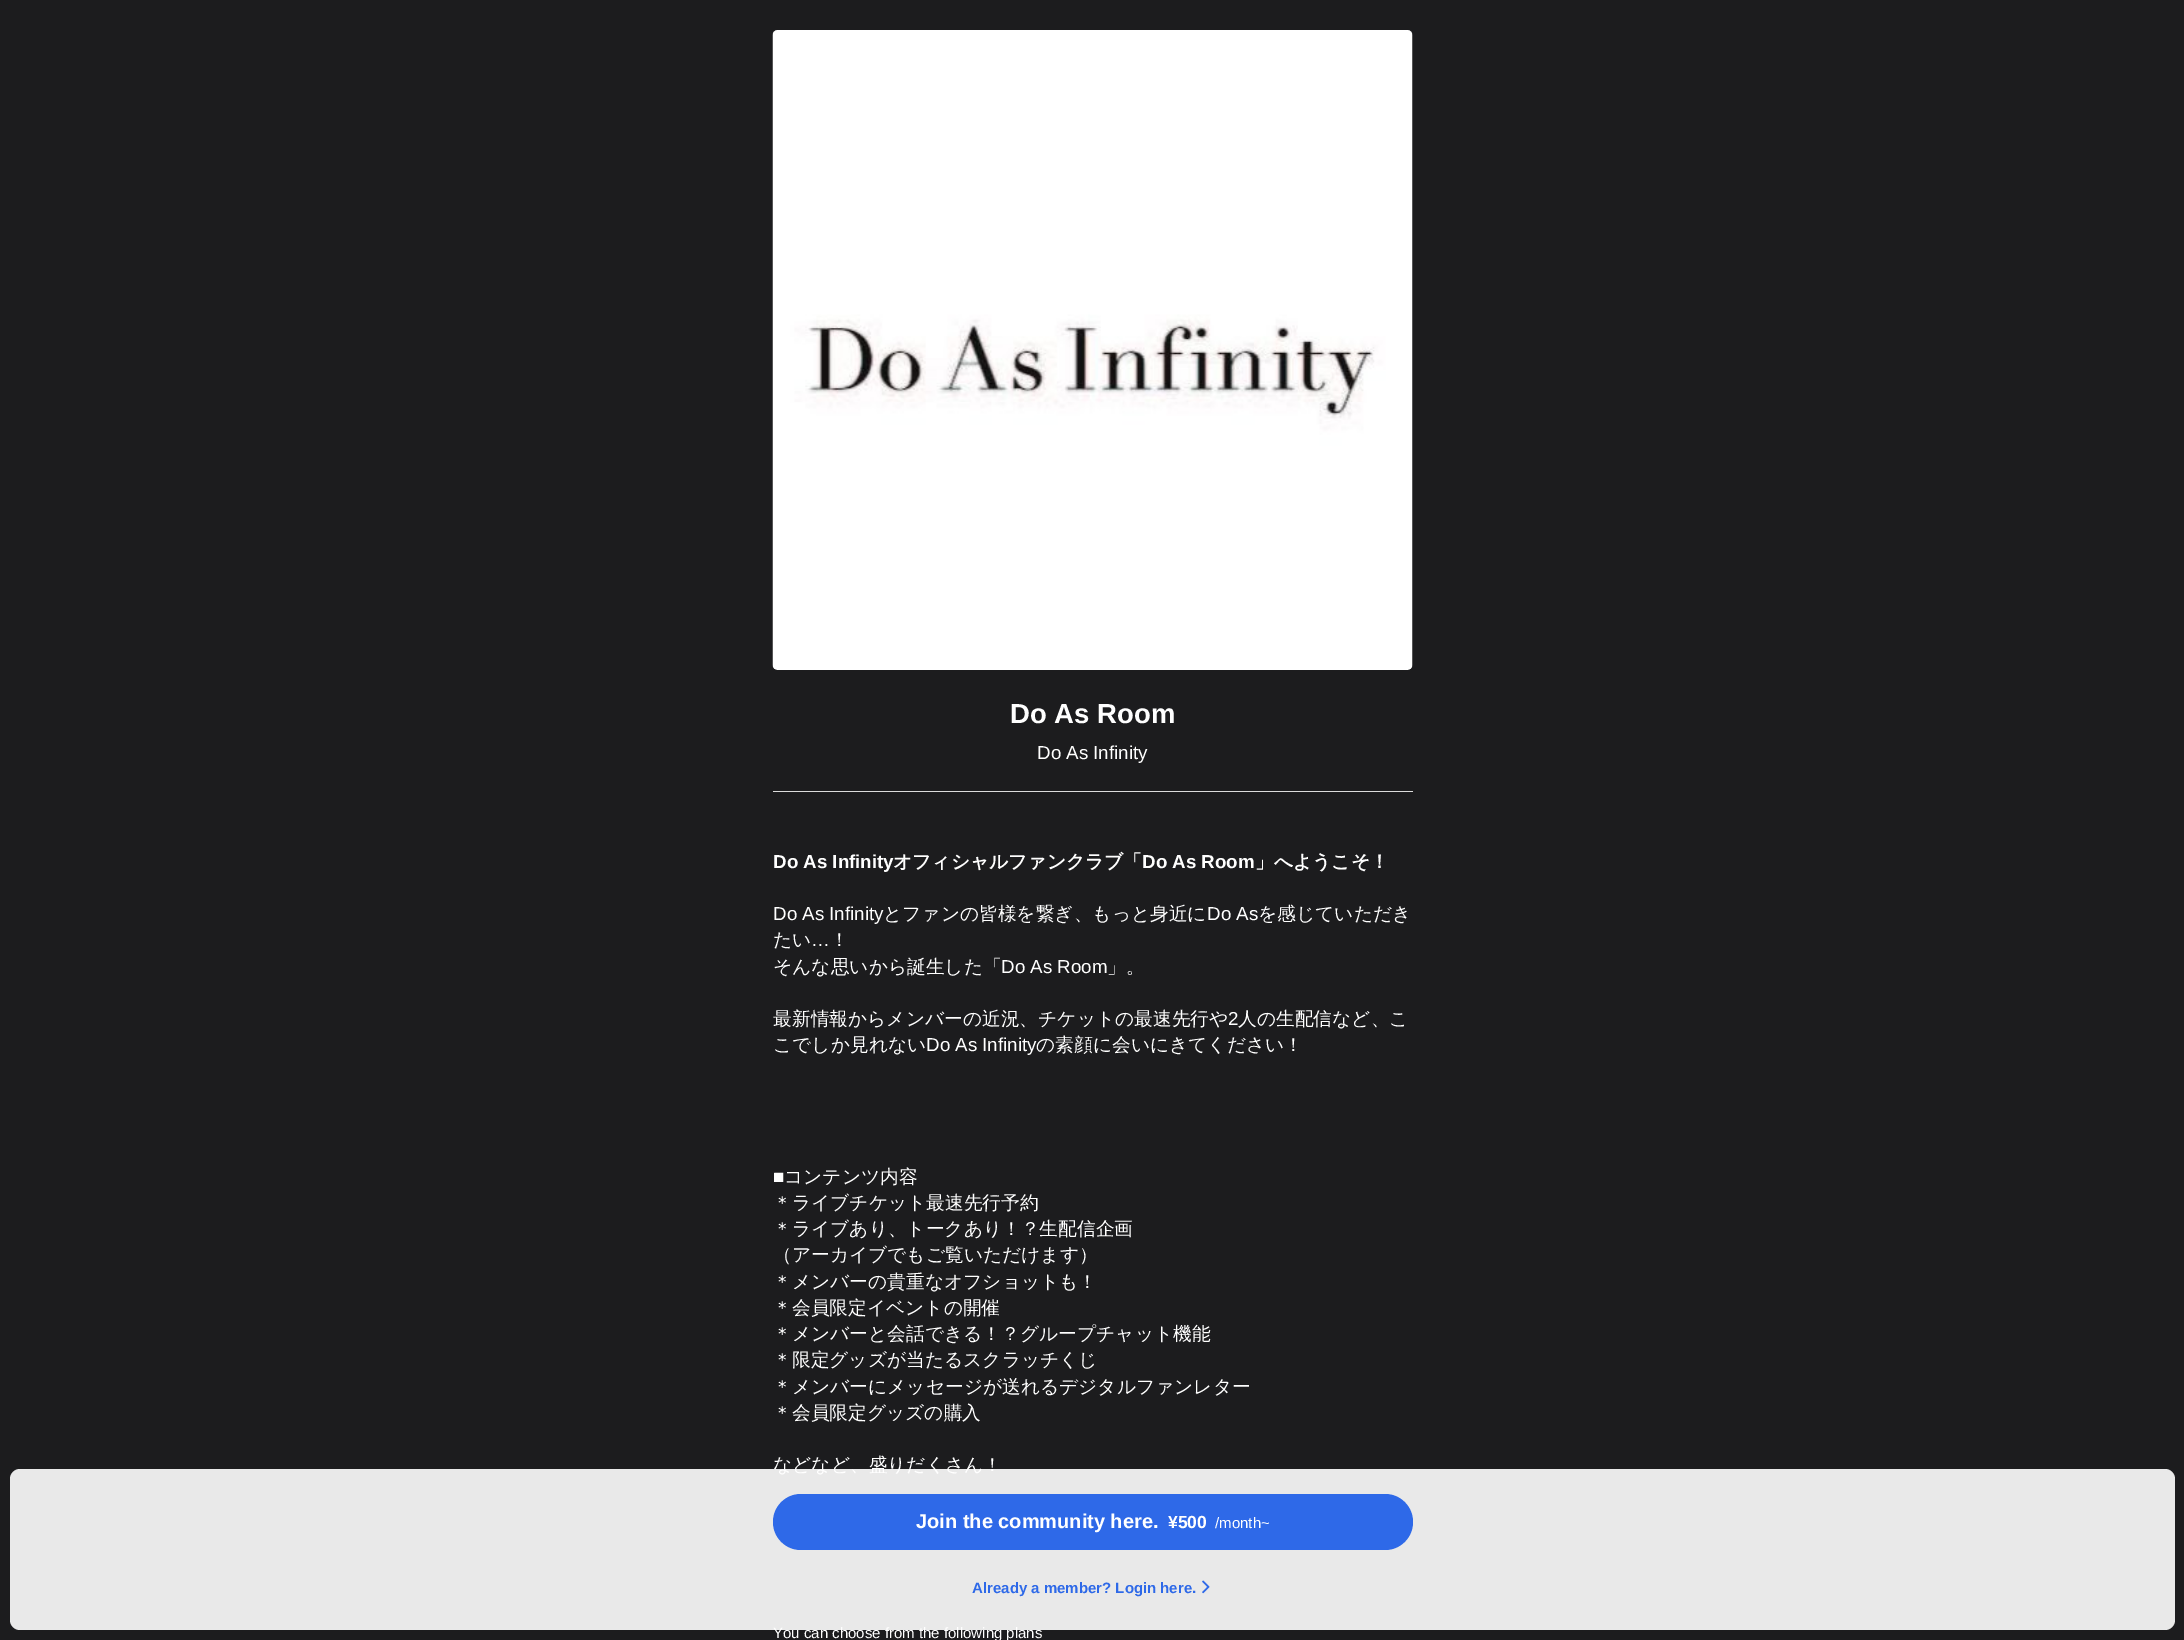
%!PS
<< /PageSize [2184 1640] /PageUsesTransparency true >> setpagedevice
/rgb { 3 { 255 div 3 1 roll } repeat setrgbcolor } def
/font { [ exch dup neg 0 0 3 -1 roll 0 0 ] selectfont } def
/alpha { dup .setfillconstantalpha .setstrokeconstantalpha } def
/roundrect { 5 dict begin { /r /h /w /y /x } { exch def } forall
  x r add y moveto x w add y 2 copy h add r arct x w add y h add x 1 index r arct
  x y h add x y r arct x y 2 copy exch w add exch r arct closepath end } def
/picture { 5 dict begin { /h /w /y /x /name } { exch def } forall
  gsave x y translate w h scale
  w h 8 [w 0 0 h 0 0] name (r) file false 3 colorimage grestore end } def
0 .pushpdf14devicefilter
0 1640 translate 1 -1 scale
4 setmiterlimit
28 28 30 rgb
0 0 2184 1640 rectfill
(img/1.rgb) 772 30 641 640 picture
220 220 220 rgb
773 791 640 1 rectfill
/LiberationSans-Bold 27.5 font
255 255 255 rgb
1010 723 moveto (Do As Room) show
/LiberationSans-Regular 18.75 font
1037 759 moveto (Do As Infinity) show
/LiberationSans-Bold 18.75 font
773 868 moveto (Do As Infinity) show
/WenQuanYiZenHei-Bold 18.75 font
893 868 moveto (オフィシャルファンクラブ「) show
/LiberationSans-Bold 18.75 font
1142 868 moveto (Do As Room) show
/WenQuanYiZenHei-Bold 18.75 font
1255 868 moveto (」へようこそ！) show
/LiberationSans-Regular 18.75 font
773 920 moveto (Do As Infinity) show
/WenQuanYiZenHei-Medium 18.75 font
883 920 moveto (とファンの皆様を繋ぎ、もっと身近に) show
/LiberationSans-Regular 18.75 font
1207 920 moveto (Do As) show
/WenQuanYiZenHei-Medium 18.75 font
1258 920 moveto (を感じていただき) show
773 946 moveto (たい) show
/LiberationSans-Regular 18.75 font
811 946 moveto (…) show
/WenQuanYiZenHei-Medium 18.75 font
830 946 moveto (！) show
773 973 moveto (そんな思いから誕生した「) show
/LiberationSans-Regular 18.75 font
1001 973 moveto (Do As Room) show
/WenQuanYiZenHei-Medium 18.75 font
1107 973 moveto (」。) show
773 1025 moveto (最新情報からメンバーの近況、チケットの最速先行や) show
/LiberationSans-Regular 18.75 font
1228 1025 moveto (2) show
/WenQuanYiZenHei-Medium 18.75 font
1238 1025 moveto (人の生配信など、こ) show
773 1051 moveto (こでしか見れない) show
/LiberationSans-Regular 18.75 font
926 1051 moveto (Do As Infinity) show
/WenQuanYiZenHei-Medium 18.75 font
1036 1051 moveto (の素顔に会いにきてください！) show
/LiberationSans-Regular 18.75 font
773 1183 moveto (■) show
/WenQuanYiZenHei-Medium 18.75 font
[
  [(コンテンツ内容) 784 1183]
  [(＊ライブチケット最速先行予約) 773 1209]
  [(＊ライブあり、トークあり！？生配信企画) 773 1235]
  [(（アーカイブでもご覧いただけます）) 773 1261]
  [(＊メンバーの貴重なオフショットも！) 773 1288]
  [(＊会員限定イベントの開催) 773 1314]
  [(＊メンバーと会話できる！？グループチャット機能) 773 1340]
  [(＊限定グッズが当たるスクラッチくじ) 773 1366]
  [(＊メンバーにメッセージが送れるデジタルファンレター) 773 1393]
  [(＊会員限定グッズの購入) 773 1419]
  [(などなど、盛りだくさん！) 773 1471]
] { aload pop moveto show } forall
/LiberationSans-Regular 15 font
773 1638 moveto (You can choose from the following plans) show
0.9 alpha
10 1469 2165 161 10 roundrect fill
1 alpha
(img/2.rgb) 1202 1580 8 14 picture
/LiberationSans-Bold 15 font
46 105 232 rgb
972 1593 moveto (Already a member? Login here.) show
773 1494 640 56 28 roundrect fill
/LiberationSans-Regular 15 font
255 255 255 rgb
1215 1528 moveto (/month~) show
/LiberationSans-Bold 17.5 font
1168 1528 moveto (¥500) show
/LiberationSans-Bold 20 font
916 1528 moveto (Join the community here.) show
.poppdf14devicefilter showpage
